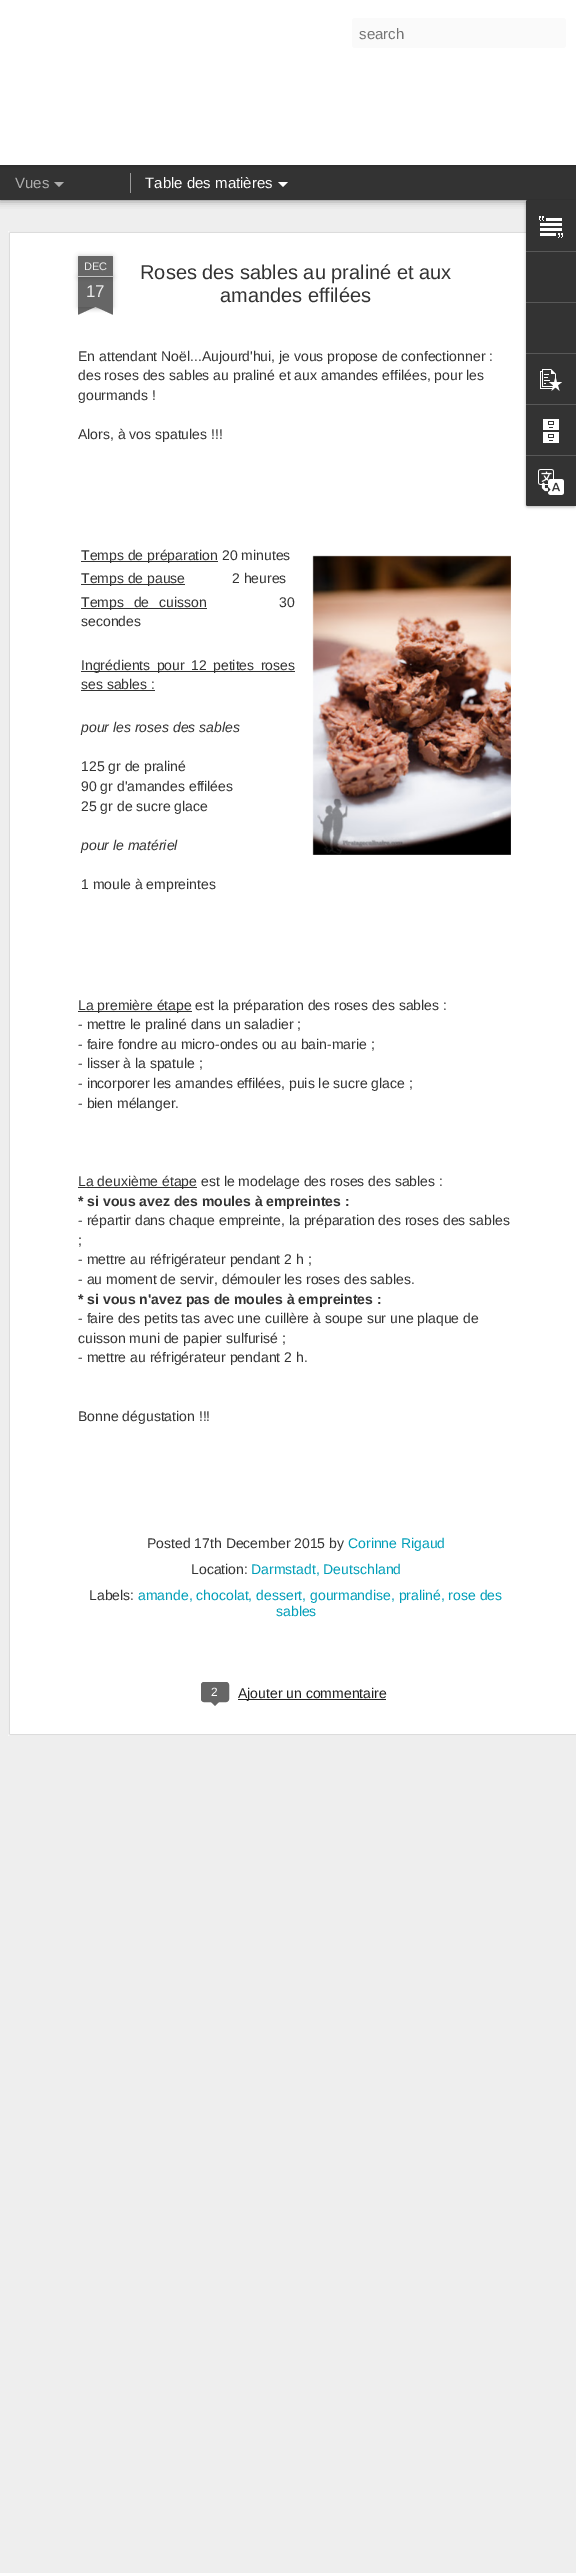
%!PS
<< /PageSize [576 2573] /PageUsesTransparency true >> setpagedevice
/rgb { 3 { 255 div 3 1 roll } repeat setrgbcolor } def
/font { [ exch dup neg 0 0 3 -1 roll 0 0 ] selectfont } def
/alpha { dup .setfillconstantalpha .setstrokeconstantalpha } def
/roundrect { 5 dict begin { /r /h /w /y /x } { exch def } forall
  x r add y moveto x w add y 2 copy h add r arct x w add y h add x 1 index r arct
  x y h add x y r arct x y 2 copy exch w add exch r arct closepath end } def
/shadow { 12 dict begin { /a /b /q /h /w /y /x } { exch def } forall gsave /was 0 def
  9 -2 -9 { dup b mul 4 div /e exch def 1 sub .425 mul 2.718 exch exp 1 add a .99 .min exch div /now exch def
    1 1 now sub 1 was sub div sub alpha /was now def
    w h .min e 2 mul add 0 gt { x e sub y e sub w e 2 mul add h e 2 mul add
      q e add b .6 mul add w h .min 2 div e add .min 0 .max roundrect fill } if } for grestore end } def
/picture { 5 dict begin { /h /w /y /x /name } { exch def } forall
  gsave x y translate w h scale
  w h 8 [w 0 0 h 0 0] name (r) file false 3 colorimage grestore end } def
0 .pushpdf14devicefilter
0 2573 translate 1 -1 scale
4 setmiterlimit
238 238 238 rgb
0 0 576 2573 rectfill
0 0 0 rgb
0 165 576 35 0 4 0.5 shadow
51 51 51 rgb
0 165 576 35 rectfill
153 153 153 rgb
130 173 1 20 rectfill
0 0 0 rgb
0 0 576 165 0 2.5 0.3 shadow
255 255 255 rgb
0 0 576 165 rectfill
250 250 250 rgb
352 18 214 30 3 roundrect fill
173 173 173 rgb
54 182 moveto 64 182 lineto 59 187 lineto closepath fill
255 255 255 rgb
278 182 moveto 288 182 lineto 283 187 lineto closepath fill
8 231 568 1505 rectfill
(img/1.rgb) 8 231 568 1505 picture
0 0 0 rgb
78 277 35 30 0 2.5 0.2 shadow
102 102 102 rgb
78 277 35 30 rectfill
0 0 0 rgb
78 256 35 21 1 2.5 0.2 shadow
102 102 102 rgb
79 256 moveto 112 256 lineto 112.5 256 113 256.5 113 257 curveto 113 277 lineto 78 277 lineto 78 257 lineto 78 256.5 78.5 256 79 256 curveto closepath fill
194 194 194 rgb
78 276 35 1 rectfill
gsave
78 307 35 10 rectclip
0 0 0 rgb
69 297 50 10 0 2.5 0.2 shadow
grestore
gsave
78 307 35 10 rectclip
102 102 102 rgb
69 308 moveto 115 287 lineto 119 296 lineto 73 317 lineto closepath fill
grestore
gsave
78 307 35 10 rectclip
0 0 0 rgb
72 297 50 10 0 2.5 0.2 shadow
grestore
gsave
78 307 35 10 rectclip
102 102 102 rgb
76 287 moveto 122 308 lineto 118 317 lineto 72 296 lineto closepath fill
grestore
51 51 51 rgb
81 561 137 1 rectfill
(img/2.rgb) 312 555 199 300 picture
[
  [81 584 104 1 51 51 51]
  [81 608 126 1 51 51 51]
  [81 671 214 1 51 51 51]
  [81 690 74 1 51 51 51]
  [78 1011 114 1 51 51 51]
  [78 1187 119 1 51 51 51]
] { aload pop rgb rectfill } forall
102 102 102 rgb
201.5 1682.5 27 19 2.5 roundrect gsave fill grestore
stroke
210 1701 moveto 220 1701 lineto 215 1706 lineto closepath fill
34 34 34 rgb
238 1699 148 1 rectfill
0 0 0 rgb
526 201 50 306 2 1.5 0.3 shadow
51 51 51 rgb
528 200 moveto 576 200 lineto 576 506 lineto 528 506 lineto 527 506 526 505 526 504 curveto 526 202 lineto 526 201 527 200 528 200 curveto closepath fill
528 200 moveto 576 200 lineto 576 251 lineto 526 251 lineto 526 202 lineto 526 201 527 200 528 200 curveto closepath fill
(img/3.rgb) 539 216 24 22 picture
[
  [526 251 50 1 88 88 88]
  [526 302 50 1 88 88 88]
  [526 353 50 1 88 88 88]
] { aload pop rgb rectfill } forall
(img/4.rgb) 540 369 22 22 picture
526 404 50 1 rectfill
(img/5.rgb) 543 419 16 24 picture
51 51 51 rgb
526 455 moveto 576 455 lineto 576 506 lineto 528 506 lineto 527 506 526 505 526 504 curveto closepath fill
88 88 88 rgb
526 455 50 1 rectfill
(img/6.rgb) 538 469 26 26 picture
/LiberationSans-Regular 15 font
117 117 117 rgb
359 39 moveto (search) show
173 173 173 rgb
15 188 moveto (Vues) show
255 255 255 rgb
145 188 moveto (Table des matières) show
/LiberationSans-Regular 11 font
238 238 238 rgb
84 270 moveto (DEC) show
/LiberationSans-Regular 17 font
86 297 moveto (17) show
/LiberationSans-Regular 20 font
51 51 51 rgb
140 279 moveto (Roses des sables au praliné et aux) show
220 302 moveto (amandes effilées) show
/LiberationSans-Regular 14 font
[
  [(En attendant Noël...Aujourd'hui, je vous propose de confectionner :) 78 361]
  [(des roses des sables au praliné et aux amandes effilées, pour les) 78 380]
  [(gourmands !) 78 400]
  [(Alors, à vos spatules !!!) 78 439]
  [(Temps de préparation 20 minutes) 81 560]
  [(Temps de pause) 81 583]
  [(2 heures) 232 583]
] { aload pop moveto show } forall
81 607 moveto 6 0 32 (Temps de cuisson) widthshow
279 607 moveto (30) show
81 626 moveto (secondes) show
81 670 moveto 2.5 0 32 (Ingrédients pour 12 petites roses) widthshow
81 689 moveto (ses sables :) show
/LiberationSans-Italic 14 font
81 732 moveto (pour les roses des sables) show
/LiberationSans-Regular 14 font
[
  [(125 gr de praliné) 81 771]
  [(90 gr d'amandes effilées) 81 791]
  [(25 gr de sucre glace) 81 811]
] { aload pop moveto show } forall
/LiberationSans-Italic 14 font
81 850 moveto (pour le matériel) show
/LiberationSans-Regular 14 font
[
  [(1 moule à empreintes) 81 889]
  [(La première étape est la préparation des roses des sables :) 78 1010]
  [(- mettre le praliné dans un saladier ;) 78 1029]
  [(- faire fondre au micro-ondes ou au bain-marie ;) 78 1049]
  [(- lisser à la spatule ;) 78 1068]
  [(- incorporer les amandes effilées, puis le sucre glace ;) 78 1088]
  [(- bien mélanger.) 78 1108]
  [(La deuxième étape est le modelage des roses des sables :) 78 1186]
] { aload pop moveto show } forall
/LiberationSans-Bold 14 font
78 1206 moveto (* si vous avez des moules à empreintes :) show
/LiberationSans-Regular 14 font
[
  [(- répartir dans chaque empreinte, la préparation des roses des sables) 78 1225]
  [(;) 78 1245]
  [(- mettre au réfrigérateur pendant 2 h ;) 78 1264]
  [(- au moment de servir, démouler les roses des sables.) 78 1284]
] { aload pop moveto show } forall
/LiberationSans-Bold 14 font
78 1304 moveto (* si vous n'avez pas de moules à empreintes :) show
/LiberationSans-Regular 14 font
[
  [(- faire des petits tas avec une cuillère à soupe sur une plaque de) 78 1323]
  [(cuisson muni de papier sulfurisé ;) 78 1343]
  [(- mettre au réfrigérateur pendant 2 h.) 78 1362]
  [(Bonne dégustation !!!) 78 1421]
  [(Posted 17th December 2015 by) 147 1548]
] { aload pop moveto show } forall
0 158 184 rgb
348 1548 moveto (Corinne Rigaud) show
51 51 51 rgb
191 1574 moveto (Location:) show
0 158 184 rgb
251 1574 moveto (Darmstadt, Deutschland) show
51 51 51 rgb
89 1600 moveto (Labels:) show
0 158 184 rgb
138 1600 moveto (amande, chocolat, dessert, gourmandise, praliné, rose des) show
276 1616 moveto (sables) show
/LiberationSans-Regular 12 font
255 255 255 rgb
211 1696 moveto (2) show
/LiberationSans-Regular 14 font
34 34 34 rgb
238 1698 moveto (Ajouter un commentaire) show
.poppdf14devicefilter showpage
